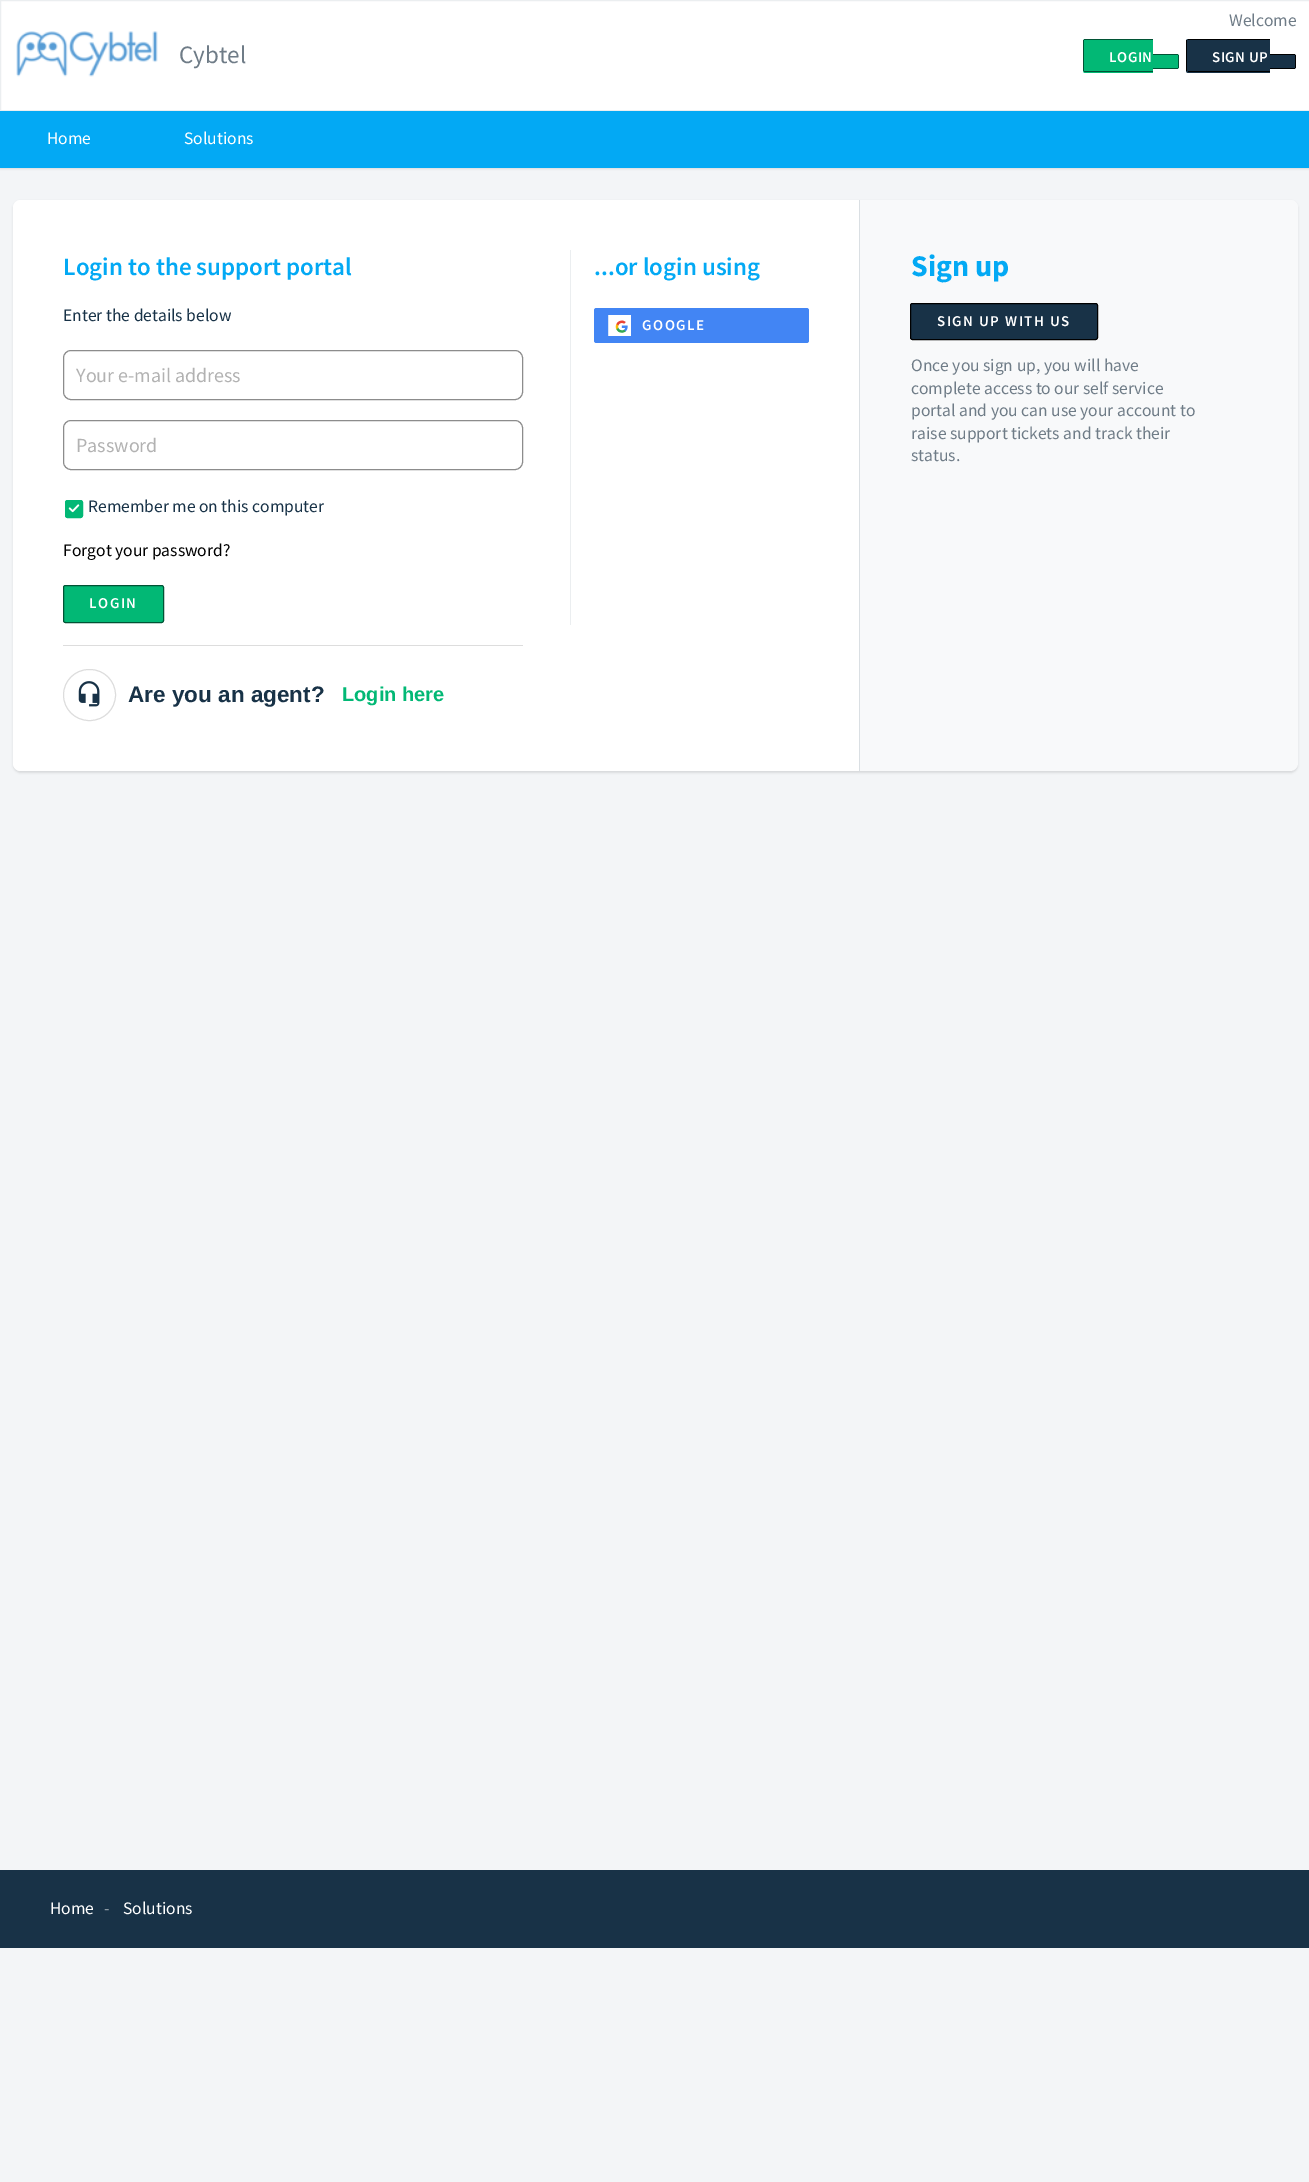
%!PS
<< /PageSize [1309 2182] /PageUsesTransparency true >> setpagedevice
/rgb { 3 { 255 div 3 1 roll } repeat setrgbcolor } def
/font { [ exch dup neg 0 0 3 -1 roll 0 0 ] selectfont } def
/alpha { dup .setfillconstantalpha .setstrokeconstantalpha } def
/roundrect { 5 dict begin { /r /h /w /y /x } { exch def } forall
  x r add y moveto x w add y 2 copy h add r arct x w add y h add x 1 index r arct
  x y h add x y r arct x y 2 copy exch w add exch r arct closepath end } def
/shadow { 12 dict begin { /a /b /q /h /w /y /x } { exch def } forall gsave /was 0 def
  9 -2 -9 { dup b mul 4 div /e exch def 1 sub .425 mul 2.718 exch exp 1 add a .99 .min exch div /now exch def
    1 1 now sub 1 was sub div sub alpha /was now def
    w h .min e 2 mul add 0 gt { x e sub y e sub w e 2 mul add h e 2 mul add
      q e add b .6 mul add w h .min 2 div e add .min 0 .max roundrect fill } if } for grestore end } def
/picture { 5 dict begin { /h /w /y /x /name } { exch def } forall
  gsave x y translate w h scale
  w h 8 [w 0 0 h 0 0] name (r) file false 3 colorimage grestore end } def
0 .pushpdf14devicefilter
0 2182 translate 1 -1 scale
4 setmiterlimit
243 245 247 rgb
0 0 1309 2182 rectfill
255 255 255 rgb
0.5 0.5 moveto 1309.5 0.5 lineto 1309.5 110.5 lineto 0.5 110.5 lineto closepath gsave fill grestore
235 238 240 rgb
stroke
(img/1.rgb) 16 31 142 46 picture
2 184 117 rgb
1085.5 39 moveto 1153 39 lineto 1153 73 lineto 1085.5 73 lineto 1084 73 1083 72 1083 70.5 curveto 1083 41.5 lineto 1083 40 1084 39 1085.5 39 curveto closepath fill
[
  [1084 39 69 1 1 83 53]
  [1084 71 69 1 1 83 53]
  [1083 40 1 31 1 83 53]
] { aload pop rgb rectfill } forall
2 184 117 rgb
1153 54 moveto 1176.5 54 lineto 1178 54 1179 55 1179 56.5 curveto 1179 66.5 lineto 1179 68 1178 69 1176.5 69 curveto 1153 69 lineto closepath fill
[
  [1153 54 25 1 1 83 53]
  [1178 55 1 13 1 83 53]
  [1153 68 25 1 1 83 53]
] { aload pop rgb rectfill } forall
24 50 71 rgb
1188.5 39 moveto 1270 39 lineto 1270 73 lineto 1188.5 73 lineto 1187 73 1186 72 1186 70.5 curveto 1186 41.5 lineto 1186 40 1187 39 1188.5 39 curveto closepath fill
[
  [1188 39 82 1 0 0 0]
  [1188 71 82 1 0 0 0]
  [1186 40 1 31 0 0 0]
] { aload pop rgb rectfill } forall
24 50 71 rgb
1270 54 moveto 1293.5 54 lineto 1295 54 1296 55 1296 56.5 curveto 1296 66.5 lineto 1296 68 1295 69 1293.5 69 curveto 1270 69 lineto closepath fill
[
  [1270 54 25 1 0 0 0]
  [1295 55 1 13 0 0 0]
  [1270 68 25 1 0 0 0]
] { aload pop rgb rectfill } forall
63 63 68 rgb
0 113 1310 56 0 1 0.15 shadow
3 169 244 rgb
0 111 1309 57 rectfill
63 63 68 rgb
13 201 1285 572 8 1 0.15 shadow
248 249 250 rgb
13 200 1285 571 8 roundrect fill
255 255 255 rgb
21 200 moveto 860 200 lineto 860 771 lineto 21 771 lineto 16.5 771 13 767.5 13 763 curveto 13 208 lineto 13 203.5 16.5 200 21 200 curveto closepath fill
218 223 227 rgb
859 200 1 571 rectfill
140 140 140 rgb
63.5 350.5 459 49 7.5 roundrect stroke
63.5 420.5 459 49 7.5 roundrect stroke
2 184 117 rgb
65.5 500.5 17 17 2 roundrect gsave fill grestore
stroke
(img/2.rgb) 68 504 12 9 picture
63.5 585.5 100 37 2 roundrect gsave fill grestore
1 83 53 rgb
stroke
221 221 221 rgb
63 645 460 1 rectfill
63.5 669.5 52 51 25.5 roundrect stroke
(img/3.rgb) 78 681 22 26 picture
235 238 240 rgb
570 250 1 375 rectfill
66 133 244 rgb
594 308 215 35 2.5 roundrect fill
(img/4.rgb) 608 315 23 21 picture
248 249 250 rgb
860 200 moveto 1290 200 lineto 1294.5 200 1298 203.5 1298 208 curveto 1298 522 lineto 1298 526.5 1294.5 530 1290 530 curveto 860 530 lineto closepath fill
24 50 71 rgb
910.5 303.5 187 36 2 roundrect gsave fill grestore
0 0 0 rgb
stroke
24 50 71 rgb
0 1870 1309 78 rectfill
/SourceSansPro-Regular 25 font
111 124 135 rgb
179 63 moveto (Cybtel) show
/SourceSansPro-Regular 17.5 font
1229 26 moveto (Welcome) show
/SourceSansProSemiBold-SemiBold 15 font
255 255 255 rgb
1109 62 moveto 0.5 0 (LOGIN) ashow
1212 62 moveto 0.5 0 (SIGN UP) ashow
/SourceSansPro-Regular 17.5 font
47 144 moveto (Home) show
184 144 moveto (Solutions) show
/SourceSansProSemiBold-SemiBold 25 font
3 169 244 rgb
63 275 moveto (Login to the support portal) show
/SourceSansPro-Regular 17.5 font
24 50 71 rgb
63 321 moveto (Enter the details below) show
/SourceSansPro-Regular 20 font
178 178 178 rgb
76 382 moveto (Your e-mail address) show
76 452 moveto (Password) show
/SourceSansPro-Regular 17.5 font
24 50 71 rgb
88 512 moveto (Remember me on this computer) show
0 0 0 rgb
63 556 moveto (Forgot your password?) show
/SourceSansProSemiBold-SemiBold 15 font
255 255 255 rgb
89 608 moveto 1.5 0 (LOGIN) ashow
/LiberationSans-Bold 22.5 font
24 50 71 rgb
128 702 moveto (Are you an agent?) show
/LiberationSans-Bold 20 font
2 184 117 rgb
342 701 moveto (Login here) show
/SourceSansProSemiBold-SemiBold 25 font
3 169 244 rgb
594 275 moveto (...or login using) show
/SourceSansProSemiBold-SemiBold 15 font
255 255 255 rgb
642 330 moveto 1.5 0 (GOOGLE) ashow
/SourceSansPro-Bold 30 font
3 169 244 rgb
911 276 moveto (Sign up) show
/SourceSansProSemiBold-SemiBold 15 font
255 255 255 rgb
937 326 moveto 1.5 0 (SIGN UP WITH US) ashow
/SourceSansPro-Regular 17.5 font
111 124 135 rgb
[
  [(Once you sign up, you will have) 911 371]
  [(complete access to our self service) 911 394]
  [(portal and you can use your account to) 911 416]
  [(raise support tickets and track their) 911 439]
  [(status.) 911 461]
] { aload pop moveto show } forall
255 255 255 rgb
50 1914 moveto (Home) show
140 153 163 rgb
104 1914 moveto (-) show
255 255 255 rgb
123 1914 moveto (Solutions) show
.poppdf14devicefilter showpage
